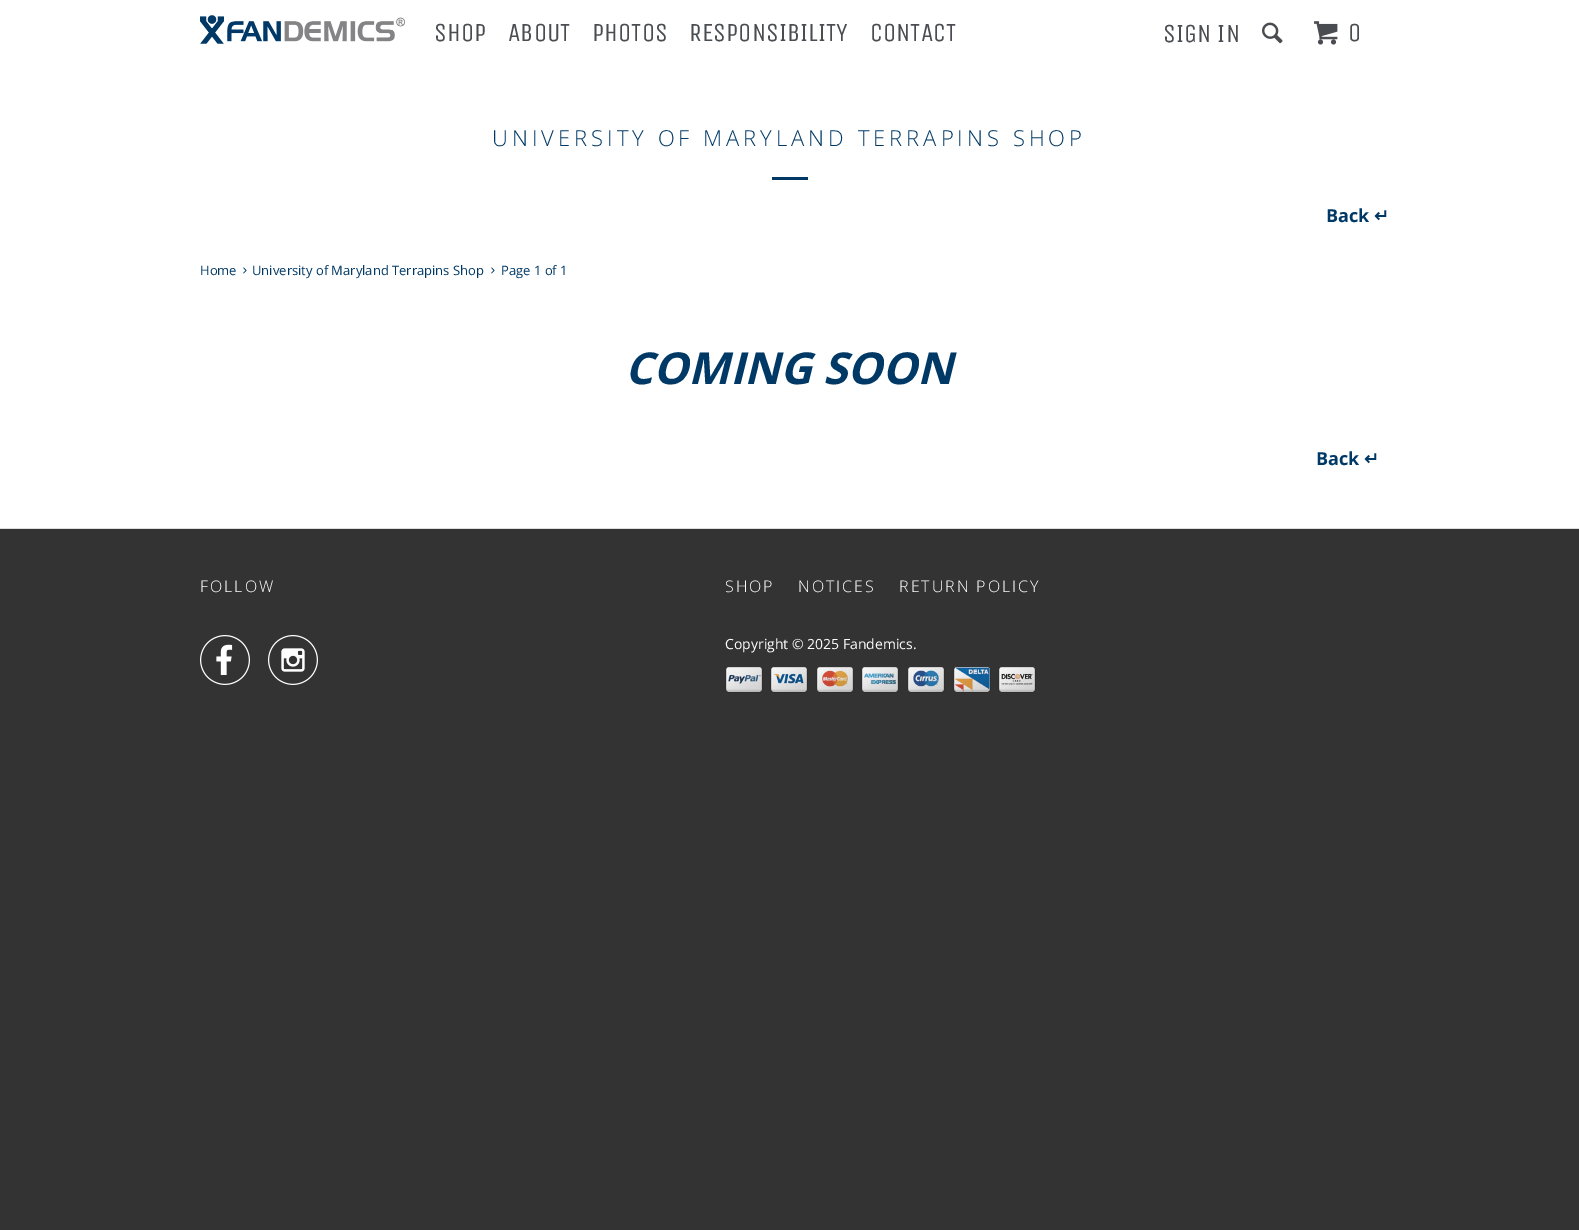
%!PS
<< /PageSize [1579 1230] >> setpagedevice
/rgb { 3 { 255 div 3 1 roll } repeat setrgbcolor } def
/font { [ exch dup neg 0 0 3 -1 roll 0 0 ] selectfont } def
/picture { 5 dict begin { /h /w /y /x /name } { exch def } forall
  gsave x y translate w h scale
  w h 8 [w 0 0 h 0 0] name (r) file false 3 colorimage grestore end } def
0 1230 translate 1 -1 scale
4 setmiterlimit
51 51 51 rgb
0 0 1579 1230 rectfill
255 255 255 rgb
0 0 1579 528 rectfill
(img/1.rgb) 200 15 205 29 picture
(img/2.rgb) 1262 22 21 22 picture
(img/3.rgb) 1314 21 24 24 picture
0 57 102 rgb
772 177 36 3 rectfill
(img/4.rgb) 243 267 4 7 picture
(img/4.rgb) 491 267 4 7 picture
221 221 221 rgb
0 528 1579 1 rectfill
(img/5.rgb) 200 635 50 50 picture
(img/6.rgb) 268 635 50 50 picture
(img/7.rgb) 725 667 38 26 picture
(img/8.rgb) 770 667 38 26 picture
(img/9.rgb) 816 667 38 26 picture
(img/10.rgb) 861 667 38 26 picture
(img/11.rgb) 907 667 38 26 picture
(img/12.rgb) 953 667 38 26 picture
(img/13.rgb) 998 667 38 26 picture
/UnicaOne-Regular 26 font
73 76 80 rgb
[
  [(SHOP) 434 41]
  [(ABOUT) 508 41]
  [(PHOTOS) 592 41]
  [(RESPONSIBILITY) 689 41]
  [(CONTACT) 870 41]
  [(SIGN IN) 1163 42]
  [(0) 1348 41]
] { aload pop moveto show } forall
/OpenSans-Light 22 font
0 57 102 rgb
492 146 moveto 4 0 (UNIVERSITY OF MARYLAND TERRAPINS SHOP) ashow
/OpenSans-Bold 18 font
1326 222 moveto (Back) show
/DejaVuSans-Bold 18 font
1374 222 moveto (↵) show
/OpenSans-Regular 13 font
[
  [(Home) 200 275]
  [(University of Maryland Terrapins Shop) 252 275]
  [(Page 1 of 1) 501 275]
] { aload pop moveto show } forall
/OpenSans-BoldItalic 44 font
625 384 moveto (COMING SOON) show
/OpenSans-Bold 18 font
1316 465 moveto (Back) show
/DejaVuSans-Bold 18 font
1364 465 moveto (↵) show
/OpenSans-Light 16 font
255 255 255 rgb
200 592 moveto 2 0 (FOLLOW) ashow
725 592 moveto 2 0 (SHOP) ashow
798 592 moveto 2 0 (NOTICES) ashow
899 592 moveto 2 0 (RETURN POLICY) ashow
/OpenSans-Regular 14 font
725 649 moveto (Copyright © 2025 Fandemics.) show
showpage
